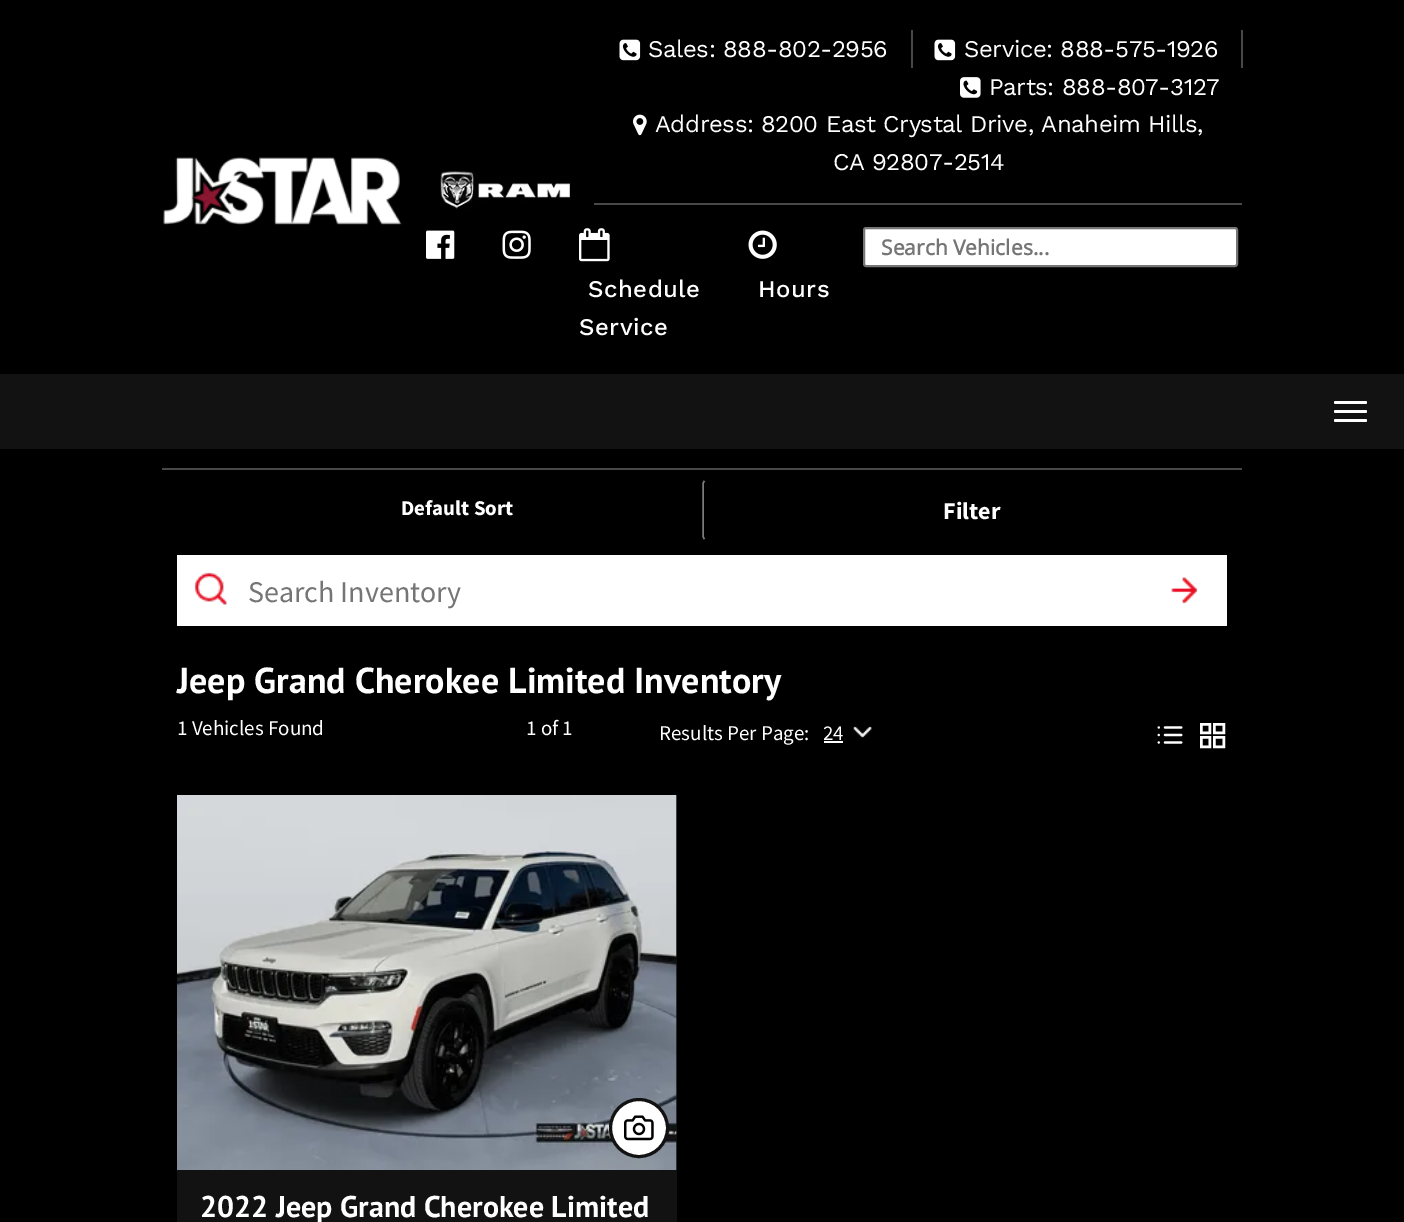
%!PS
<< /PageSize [1404 1222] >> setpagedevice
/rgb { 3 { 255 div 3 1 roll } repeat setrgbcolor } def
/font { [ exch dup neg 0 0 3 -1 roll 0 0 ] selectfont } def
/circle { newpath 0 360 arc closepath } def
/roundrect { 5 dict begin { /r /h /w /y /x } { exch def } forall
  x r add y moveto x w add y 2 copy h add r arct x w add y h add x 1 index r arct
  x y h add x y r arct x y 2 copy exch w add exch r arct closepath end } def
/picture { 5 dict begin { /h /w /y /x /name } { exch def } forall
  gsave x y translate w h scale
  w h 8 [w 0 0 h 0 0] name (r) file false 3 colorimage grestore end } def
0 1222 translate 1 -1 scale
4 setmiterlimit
0 0 0 rgb
0 0 1404 1222 rectfill
(img/1.rgb) 163 157 239 68 picture
(img/2.rgb) 440 171 130 39 picture
72 72 72 rgb
594 203 648 2 rectfill
(img/3.rgb) 619 39 22 22 picture
1241 30 2 38 rectfill
911 30 2 38 rectfill
(img/3.rgb) 934 39 22 22 picture
(img/4.rgb) 960 77 21 21 picture
(img/5.rgb) 633 114 14 22 picture
(img/6.rgb) 426 230 29 29 picture
(img/7.rgb) 502 230 29 29 picture
255 255 255 rgb
864 228 373 38 2 roundrect gsave fill grestore
118 118 118 rgb
2 setlinewidth
stroke
(img/8.rgb) 579 228 31 34 picture
(img/9.rgb) 748 230 29 29 picture
18 18 18 rgb
0 374 1404 75 rectfill
255 255 255 rgb
1334 401 33 3 1.5 roundrect fill
1334 410 33 3 1.5 roundrect fill
1334 419 33 3 1.5 roundrect fill
72 72 72 rgb
162 468 1080 2 rectfill
124 122 122 rgb
1.5 setlinewidth
704.5 539 moveto 703.5 538 703 537 703 535.5 curveto 703 484.5 lineto 703 483 703.5 482 704.5 481 curveto stroke
255 255 255 rgb
177 555 1050 71 rectfill
(img/10.rgb) 194 572 33 33 picture
(img/11.rgb) 1171 577 27 27 picture
(img/12.rgb) 853 726 19 12 picture
824 741 19 2 rectfill
(img/13.rgb) 1157 726 26 18 picture
2.5 setlinewidth
1201.25 724.25 8.5 8.5 rectstroke
1214.25 724.25 9.5 8.5 rectstroke
1201.25 737.25 8.5 9.5 rectstroke
1214.25 737.25 9.5 9.5 rectstroke
18 18 18 rgb
177 795 500 427 rectfill
(img/14.rgb) 177 795 500 375 picture
255 255 255 rgb
639 1128 28.5 circle gsave fill grestore
18 18 18 rgb
3 setlinewidth
stroke
(img/15.rgb) 624 1115 30 26 picture
/WorkSans-Regular 24 font
255 255 255 rgb
648 57 moveto -0.45 0 (Sales: 888-802-2956) ashow
964 57 moveto -0.45 0 (Service: 888-575-1926) ashow
989 95 moveto -0.45 0 (Parts: 888-807-3127) ashow
655 132 moveto -0.45 0 (Address: 8200 East Crystal Drive, Anaheim Hills,) ashow
833 170 moveto -0.45 0 (CA 92807-2514) ashow
/OpenSans-Bold 21 font
117 117 117 rgb
881 255 moveto (Search Vehicles...) show
/WorkSans-Medium 24 font
255 255 255 rgb
588 297 moveto 0.5 0 (Schedule) ashow
579 335 moveto 0.5 0 (Service) ashow
758 297 moveto 0.5 0 (Hours) ashow
/SourceSansPro-Bold 21 font
401 515 moveto (Default Sort) show
/SourceSansPro-Bold 24 font
943 519 moveto (Filter) show
/SourceSansPro-Regular 30 font
117 117 117 rgb
248 602 moveto (Search Inventory) show
/PTSans-Bold 36 font
255 255 255 rgb
177 693 moveto (Jeep Grand Cherokee Limited Inventory) show
/SourceSansPro-Regular 21 font
[
  [(1 Vehicles Found) 177 735]
  [(1 of 1) 526 735]
  [(Results Per Page:) 659 740]
] { aload pop moveto show } forall
gsave
824 717 31 32 rectclip
823 740 moveto (24) show
grestore
/PTSans-Bold 30 font
200 1217 moveto (2022 Jeep Grand Cherokee Limited) show
showpage
